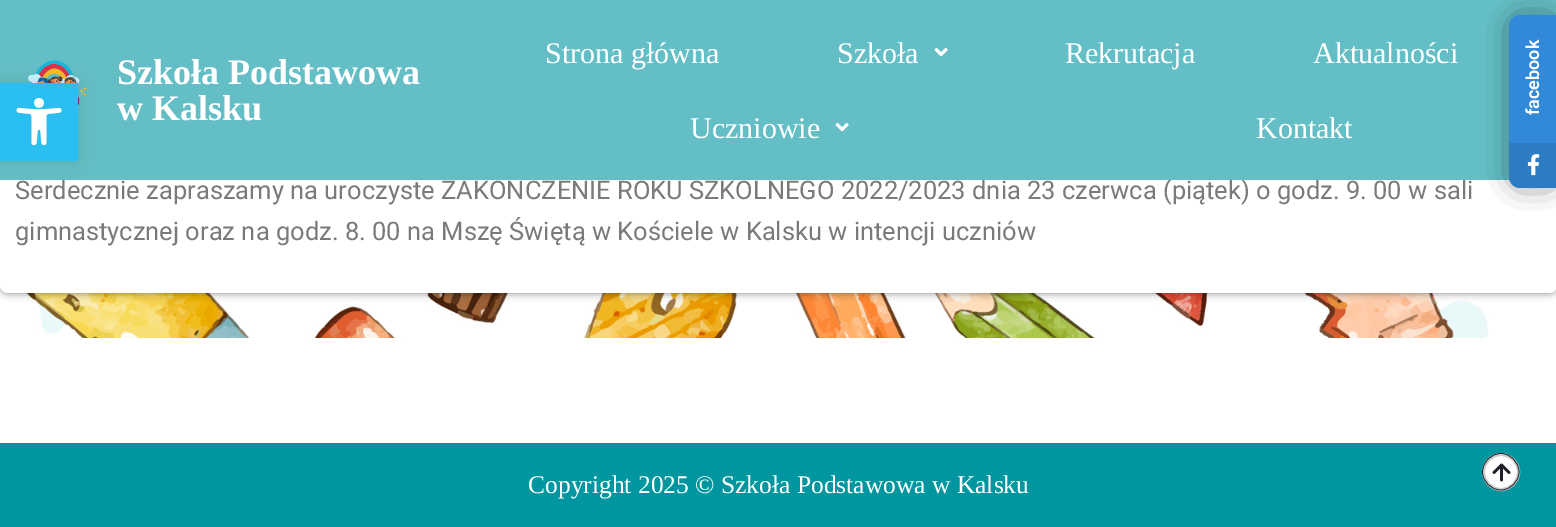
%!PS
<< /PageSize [1556 527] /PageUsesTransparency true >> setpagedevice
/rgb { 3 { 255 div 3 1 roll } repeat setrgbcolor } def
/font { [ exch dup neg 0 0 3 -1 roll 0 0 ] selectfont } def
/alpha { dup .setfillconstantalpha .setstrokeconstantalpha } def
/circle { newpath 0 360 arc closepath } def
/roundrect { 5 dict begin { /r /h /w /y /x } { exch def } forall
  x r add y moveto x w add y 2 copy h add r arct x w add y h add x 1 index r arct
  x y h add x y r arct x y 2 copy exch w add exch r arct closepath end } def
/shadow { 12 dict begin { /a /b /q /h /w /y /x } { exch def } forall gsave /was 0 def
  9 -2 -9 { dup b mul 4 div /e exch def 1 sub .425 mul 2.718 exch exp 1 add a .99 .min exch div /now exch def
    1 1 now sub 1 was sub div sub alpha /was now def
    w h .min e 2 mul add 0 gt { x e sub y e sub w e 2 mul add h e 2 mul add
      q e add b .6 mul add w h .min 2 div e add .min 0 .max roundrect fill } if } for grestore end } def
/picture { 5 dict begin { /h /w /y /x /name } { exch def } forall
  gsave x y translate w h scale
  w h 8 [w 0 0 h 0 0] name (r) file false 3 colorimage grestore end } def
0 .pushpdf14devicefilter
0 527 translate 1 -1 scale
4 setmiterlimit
255 255 255 rgb
0 0 1556 527 rectfill
(img/1.rgb) 0 285 1556 53 picture
0 0 0 rgb
0 131 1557 162 8 4 0.5 shadow
255 255 255 rgb
0 131 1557 162 8 roundrect fill
0 150 160 rgb
0 443 1556 84 rectfill
255 255 255 rgb
1501 472 17.5 circle gsave fill grestore
204 204 204 rgb
3 setlinewidth
stroke
31 32 41 rgb
0.7 setlinewidth
1501 453.5 moveto 1510.5 453.5 1519 462 1519 472 curveto 1519 481.5 1510.5 490 1501 490 curveto 1491 490 1482.5 481.5 1482.5 472 curveto 1482.5 462 1491 453.5 1501 453.5 curveto stroke
(img/6.rgb) 1492 463 19 19 picture
/Roboto-Regular 25.5 font
122 122 122 rgb
15 199 moveto (Serdecznie zapraszamy na uroczyste ZAKOŃCZENIE ROKU SZKOLNEGO 2022/2023 dnia 23 czerwca \(piątek\) o godz. 9. 00 w sali) show
100 190 197 rgb
0 0 1556 180 rectfill
0 0 0 rgb
1520 26 27 151 0 15 1 shadow
50 137 217 rgb
1520 15 moveto 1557 15 lineto 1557 188 lineto 1520 188 lineto 1514 188 1509 183 1509 177 curveto 1509 26 lineto 1509 20 1514 15 1520 15 curveto closepath fill
0.1 alpha
0 0 0 rgb
1509 143 moveto 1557 143 lineto 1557 188 lineto 1520 188 lineto 1514 188 1509 183 1509 177 curveto closepath fill
1 alpha
(img/5.rgb) 1527 154 13 22 picture
/Roboto-SemiBold 18 font
255 255 255 rgb
gsave 1539 115 translate -90 rotate 0 0 moveto (facebook) show grestore
(img/3.rgb) 28 60 59 45 picture
0 0 0 rgb
0 83 78 78 0 7.5 0.1 shadow
43 190 241 rgb
0 83 78 78 rectfill
(img/2.rgb) 16 98 46 48 picture
/LiberationSerif-Regular 30 font
255 255 255 rgb
1256 138 moveto (Kontakt) show
(img/4.rgb) 835 122 14 10 picture
[
  [(Uczniowie) 690 138]
  [(Aktualności) 1313 63]
  [(Rekrutacja) 1065 63]
] { aload pop moveto show } forall
(img/4.rgb) 934 47 14 10 picture
837 63 moveto (Szkoła) show
545 63 moveto (Strona główna) show
/LiberationSerif-Bold 36 font
117 120 moveto (w Kalsku) show
117 84 moveto (Szkoła Podstawowa) show
/Roboto-Regular 25.5 font
122 122 122 rgb
15 240 moveto (gimnastycznej oraz na godz. 8. 00 na Mszę Świętą w Kościele w Kalsku w intencji uczniów) show
/LiberationSerif-Regular 25.5 font
255 255 255 rgb
528 493 moveto (Copyright 2025 © Szkoła Podstawowa w Kalsku) show
.poppdf14devicefilter showpage
